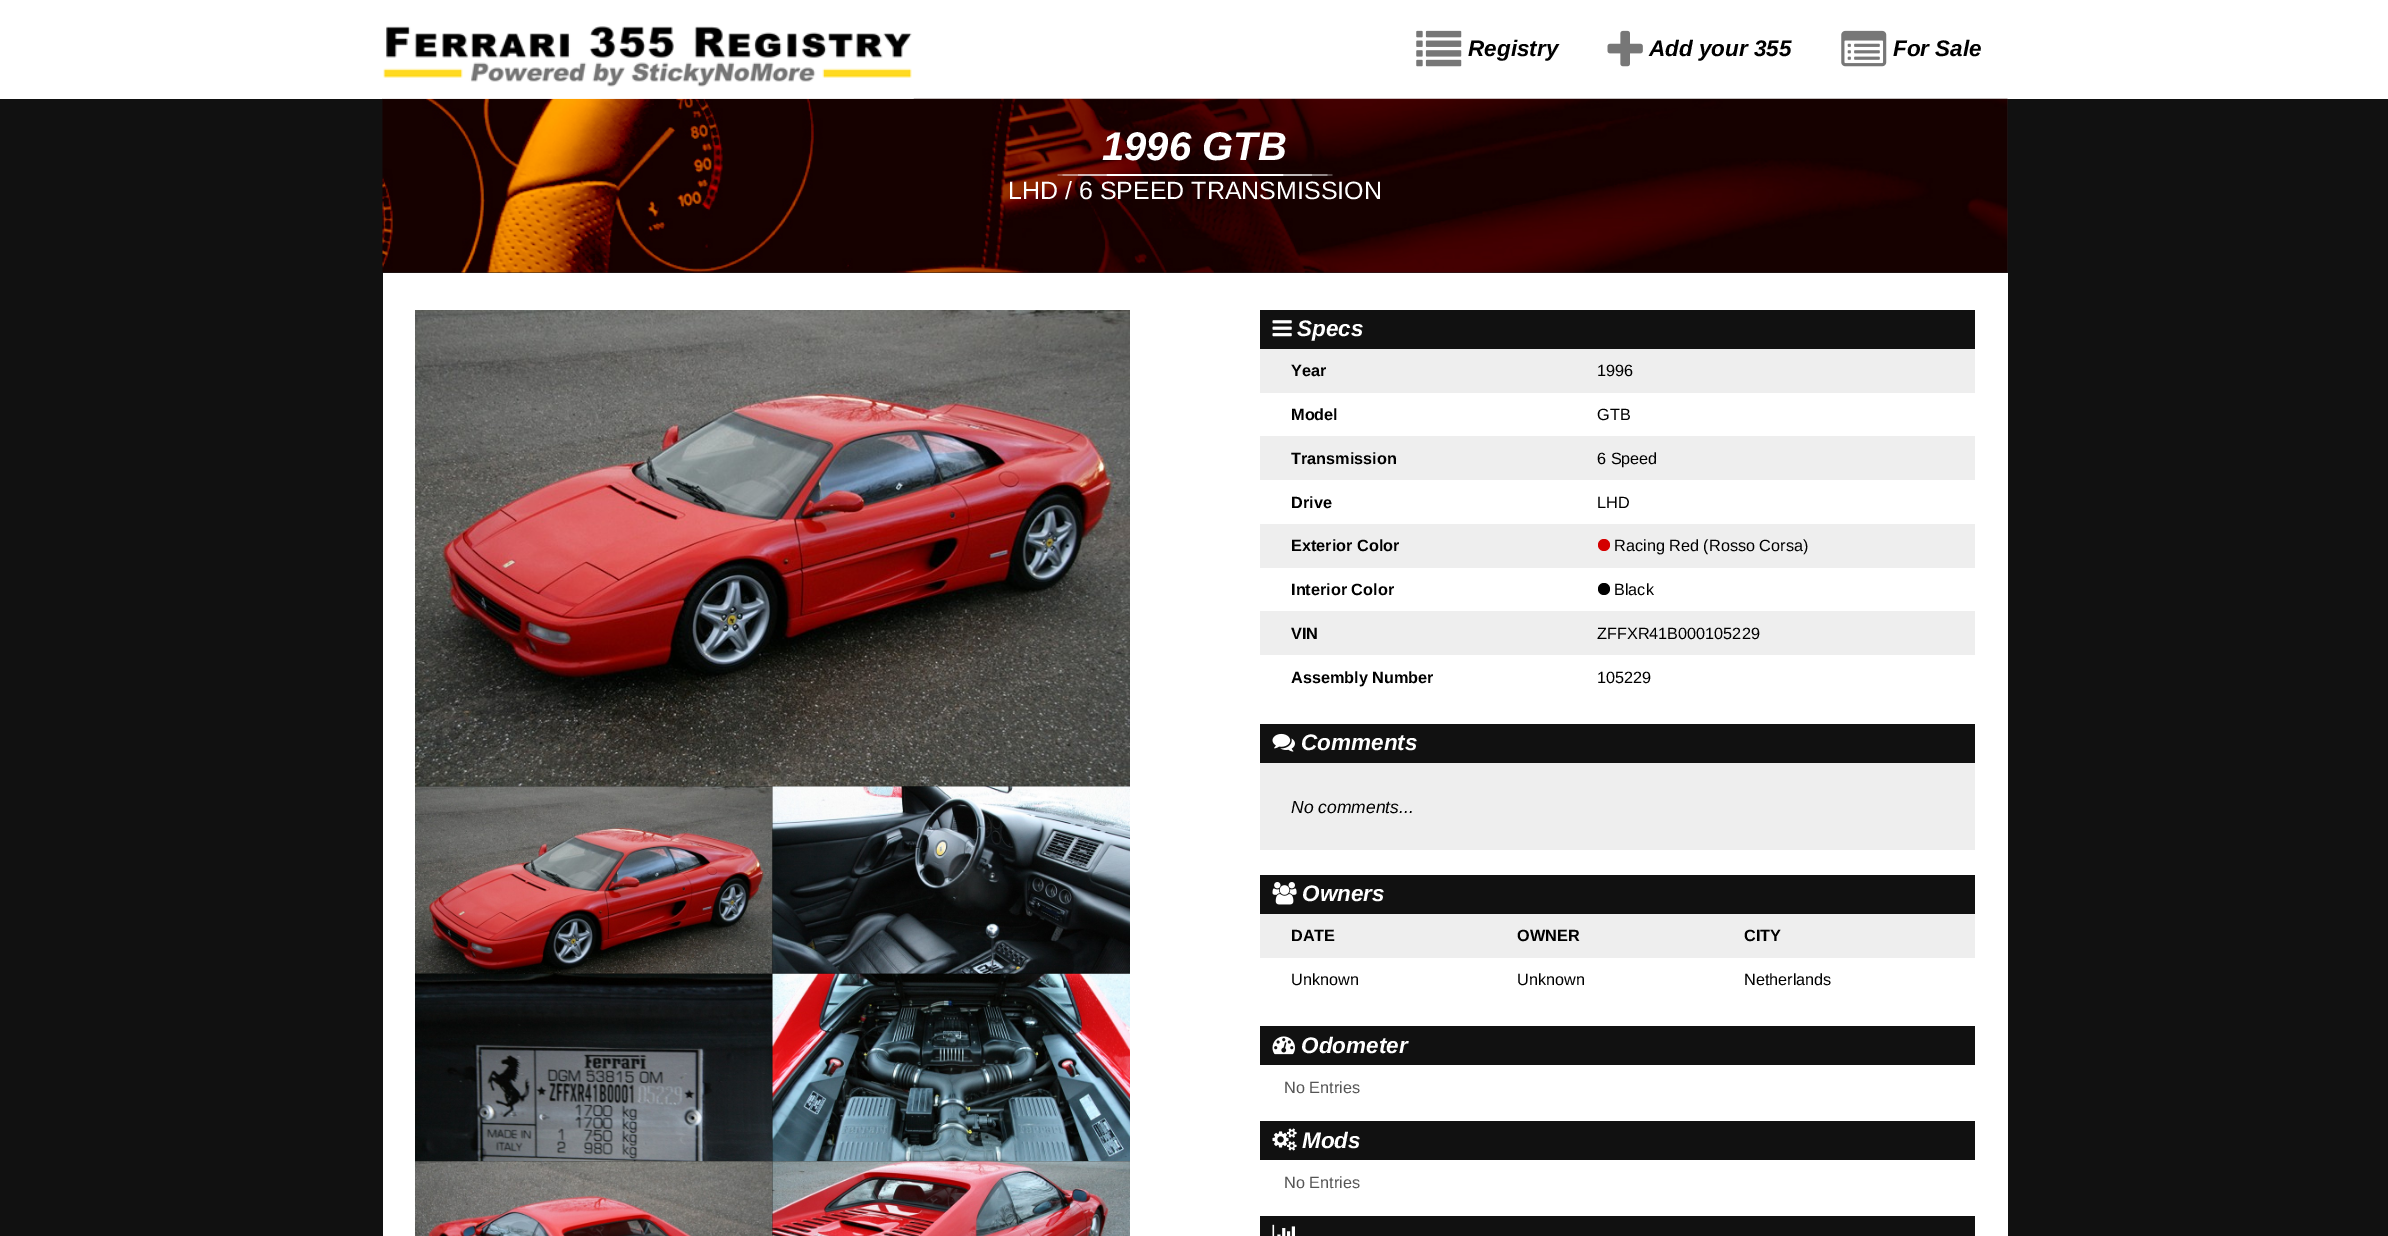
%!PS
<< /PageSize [2388 1236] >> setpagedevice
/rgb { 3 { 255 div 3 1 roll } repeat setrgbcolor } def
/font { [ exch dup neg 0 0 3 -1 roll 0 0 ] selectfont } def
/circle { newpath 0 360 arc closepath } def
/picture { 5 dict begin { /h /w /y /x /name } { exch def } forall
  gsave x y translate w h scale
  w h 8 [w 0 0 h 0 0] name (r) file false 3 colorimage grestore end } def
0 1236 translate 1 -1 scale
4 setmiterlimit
17 17 17 rgb
0 0 2388 1236 rectfill
255 255 255 rgb
0 0 2388 99 rectfill
34 34 34 rgb
383 99 1625 174 rectfill
(img/5.rgb) 382 98 1626 175 picture
(img/1.rgb) 382 26 532 73 picture
(img/2.rgb) 1416 30 46 37 picture
(img/3.rgb) 1607 30 36 37 picture
(img/4.rgb) 1841 30 46 37 picture
255 255 255 rgb
1195 174 moveto 1271 174 1332.5 174.5 1332.5 175 curveto 1332.5 175.5 1271 176 1195 176 curveto 1119 176 1057.5 175.5 1057.5 175 curveto 1057.5 174.5 1119 174 1195 174 curveto closepath fill
383 273 1625 963 rectfill
(img/7.rgb) 415 786 358 188 picture
(img/8.rgb) 772 786 358 188 picture
(img/6.rgb) 415 310 715 477 picture
(img/9.rgb) 415 973 358 189 picture
(img/10.rgb) 772 973 358 189 picture
(img/11.rgb) 415 1161 358 75 picture
(img/12.rgb) 772 1161 358 75 picture
17 17 17 rgb
1260 310 715 39 rectfill
(img/13.rgb) 1272 320 20 17 picture
[
  [1260 349 715 44 238 238 238]
  [1260 436 715 44 238 238 238]
  [1260 524 715 44 238 238 238]
] { aload pop rgb rectfill } forall
212 0 0 rgb
1604 545 6 circle fill
0 0 0 rgb
1604 589 6 circle fill
238 238 238 rgb
1260 611 715 44 rectfill
17 17 17 rgb
1260 724 715 39 rectfill
(img/14.rgb) 1272 733 23 19 picture
238 238 238 rgb
1260 763 715 87 rectfill
17 17 17 rgb
1260 875 715 39 rectfill
(img/15.rgb) 1272 882 25 23 picture
238 238 238 rgb
1260 914 715 44 rectfill
17 17 17 rgb
1260 1026 715 39 rectfill
(img/16.rgb) 1272 1036 23 19 picture
1260 1121 715 39 rectfill
(img/17.rgb) 1272 1128 25 23 picture
1260 1216 715 20 rectfill
(img/18.rgb) 1272 1224 23 12 picture
/LiberationSans-BoldItalic 22.5 font
0 0 0 rgb
[
  [(Registry) 1468 56]
  [(Add your 355) 1649 56]
  [(For Sale) 1893 56]
] { aload pop moveto show } forall
/LiberationSans-BoldItalic 40 font
255 255 255 rgb
1102 160 moveto (1996 GTB) show
/LiberationSans-Regular 25 font
1008 199 moveto (LHD / 6 SPEED TRANSMISSION) show
/LiberationSans-BoldItalic 22.5 font
1297 336 moveto (Specs) show
/LiberationSans-Bold 16.25 font
0 0 0 rgb
1291 376 moveto (Year) show
/LiberationSans-Regular 16.25 font
1597 376 moveto (1996) show
/LiberationSans-Bold 16.25 font
1291 420 moveto (Model) show
/LiberationSans-Regular 16.25 font
1597 420 moveto (GTB) show
/LiberationSans-Bold 16.25 font
1291 464 moveto (Transmission) show
/LiberationSans-Regular 16.25 font
1597 464 moveto (6 Speed) show
/LiberationSans-Bold 16.25 font
1291 508 moveto (Drive) show
/LiberationSans-Regular 16.25 font
1597 508 moveto (LHD) show
/LiberationSans-Bold 16.25 font
1291 551 moveto (Exterior Color) show
/LiberationSans-Regular 16.25 font
1614 551 moveto (Racing Red \(Rosso Corsa\)) show
/LiberationSans-Bold 16.25 font
1291 595 moveto (Interior Color) show
/LiberationSans-Regular 16.25 font
1614 595 moveto (Black) show
/LiberationSans-Bold 16.25 font
1291 639 moveto (VIN) show
/LiberationSans-Regular 16.25 font
1597 639 moveto (ZFFXR41B000105229) show
/LiberationSans-Bold 16.25 font
1291 683 moveto (Assembly Number) show
/LiberationSans-Regular 16.25 font
1597 683 moveto (105229) show
/LiberationSans-BoldItalic 22.5 font
255 255 255 rgb
1301 750 moveto (Comments) show
/LiberationSans-Italic 17.5 font
0 0 0 rgb
1291 813 moveto (No comments...) show
/LiberationSans-BoldItalic 22.5 font
255 255 255 rgb
1302 901 moveto (Owners) show
/LiberationSans-Bold 16.25 font
0 0 0 rgb
[
  [(DATE) 1291 941]
  [(OWNER) 1517 941]
  [(CITY) 1744 941]
] { aload pop moveto show } forall
/LiberationSans-Regular 16.25 font
[
  [(Unknown) 1291 985]
  [(Unknown) 1517 985]
  [(Netherlands) 1744 985]
] { aload pop moveto show } forall
/LiberationSans-BoldItalic 22.5 font
255 255 255 rgb
1301 1053 moveto (Odometer) show
/LiberationSans-Regular 16.25 font
85 85 85 rgb
1284 1093 moveto (No Entries) show
/LiberationSans-BoldItalic 22.5 font
255 255 255 rgb
1302 1148 moveto (Mods) show
/LiberationSans-Regular 16.25 font
85 85 85 rgb
1284 1188 moveto (No Entries) show
showpage
